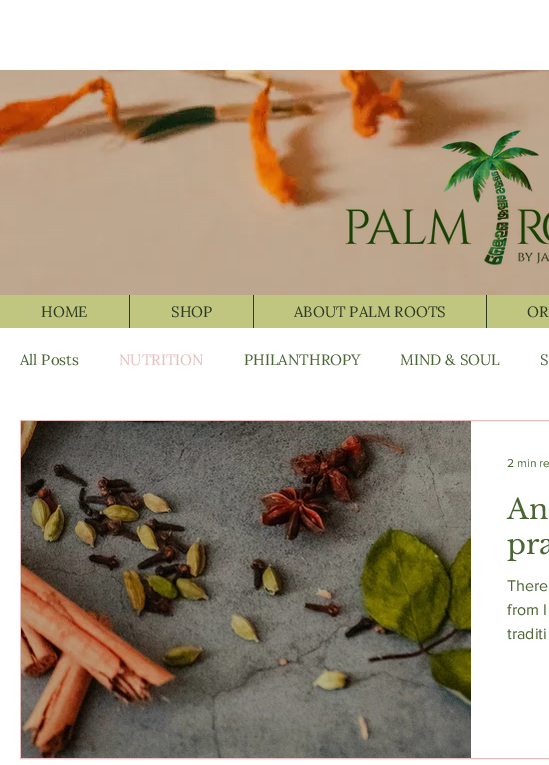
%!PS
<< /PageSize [549 765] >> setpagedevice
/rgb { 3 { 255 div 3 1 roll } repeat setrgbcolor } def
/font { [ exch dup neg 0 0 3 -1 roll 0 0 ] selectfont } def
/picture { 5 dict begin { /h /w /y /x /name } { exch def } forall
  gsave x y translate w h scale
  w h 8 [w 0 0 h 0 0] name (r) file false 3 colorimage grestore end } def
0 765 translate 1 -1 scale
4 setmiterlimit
255 255 255 rgb
0 0 549 765 rectfill
(img/1.rgb) 0 70 549 225 picture
(img/2.rgb) 345 129 204 137 picture
[
  [0 295 549 33 192 197 128]
  [129 295 1 33 45 58 34]
  [253 295 1 33 45 58 34]
  [486 295 1 33 45 58 34]
] { aload pop rgb rectfill } forall
230 190 190 rgb
20.5 420.5 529 338 rectstroke
(img/3.rgb) 21 421 450 337 picture
/Lora-Regular 15 font
45 58 34 rgb
[
  [(HOME) 41 317]
  [(SHOP) 171 317]
  [(ABOUT PALM ROOTS) 294 317]
  [(OR) 527 317]
] { aload pop moveto show } forall
75 102 53 rgb
20 365 moveto (All Posts) show
230 190 190 rgb
119 365 moveto (NUTRITION) show
75 102 53 rgb
[
  [(PHILANTHROPY) 244 365]
  [(MIND & SOUL) 400 365]
  [(S) 540 365]
] { aload pop moveto show } forall
/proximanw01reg-Regular 12 font
507 467 moveto (2 min re) show
/LibreBaskerville-Regular 28 font
507 519 moveto (An) show
507 554 moveto (pra) show
/proximanw01reg-Regular 16 font
[
  [(There) 507 591]
  [(from I) 507 615]
  [(traditi) 507 639]
] { aload pop moveto show } forall
showpage
